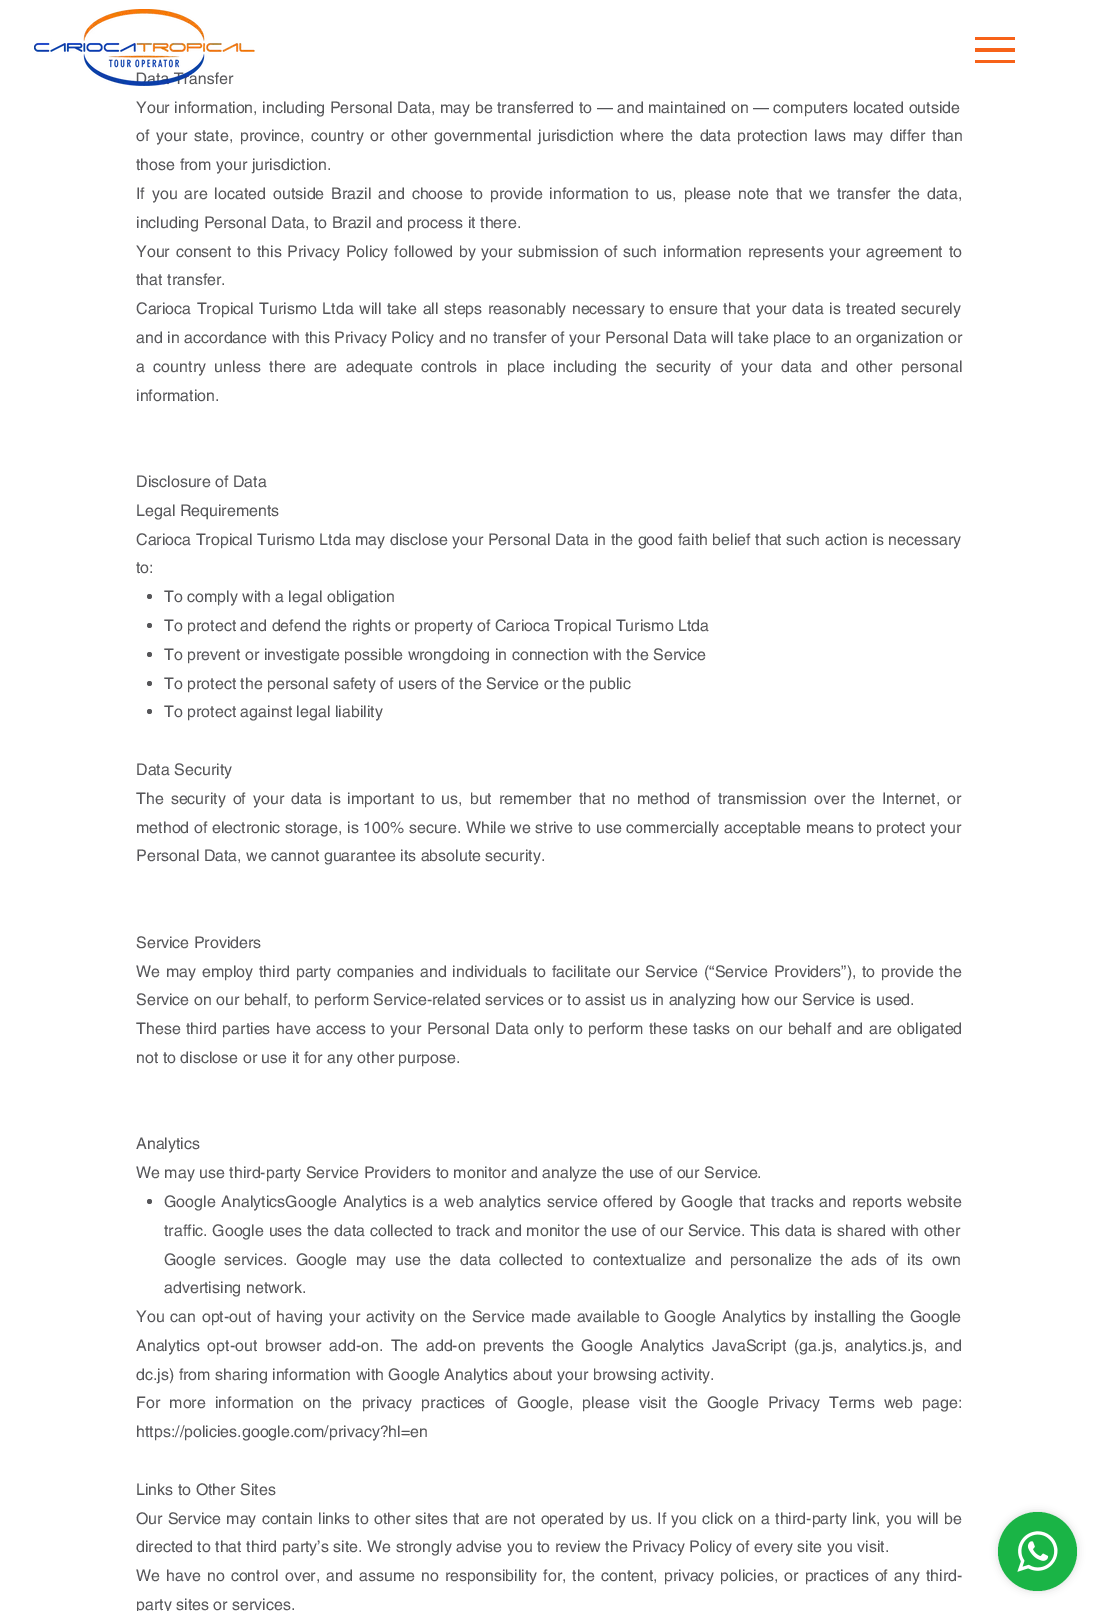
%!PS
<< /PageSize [1097 1611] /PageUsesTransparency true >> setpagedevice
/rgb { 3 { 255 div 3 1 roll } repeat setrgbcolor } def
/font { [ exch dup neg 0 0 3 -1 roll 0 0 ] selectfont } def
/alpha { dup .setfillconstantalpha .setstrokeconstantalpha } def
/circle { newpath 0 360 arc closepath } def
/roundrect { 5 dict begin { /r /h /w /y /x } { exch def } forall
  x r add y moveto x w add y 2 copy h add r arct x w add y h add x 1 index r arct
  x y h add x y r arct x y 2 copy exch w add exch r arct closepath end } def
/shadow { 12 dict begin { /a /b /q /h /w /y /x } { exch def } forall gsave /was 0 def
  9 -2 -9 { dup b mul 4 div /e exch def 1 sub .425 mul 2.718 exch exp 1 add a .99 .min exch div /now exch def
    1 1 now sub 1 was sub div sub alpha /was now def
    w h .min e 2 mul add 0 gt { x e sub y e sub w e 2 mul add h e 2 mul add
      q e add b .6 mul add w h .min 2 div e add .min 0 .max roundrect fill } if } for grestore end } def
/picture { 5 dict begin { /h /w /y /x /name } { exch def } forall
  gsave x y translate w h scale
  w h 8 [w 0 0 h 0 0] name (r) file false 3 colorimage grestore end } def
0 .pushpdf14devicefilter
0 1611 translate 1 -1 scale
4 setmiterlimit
255 255 255 rgb
0 0 1097 1611 rectfill
[
  [975 60 40 3 247 98 24]
  [975 37 40 3 247 98 24]
  [975 48 40 4 247 98 24]
] { aload pop rgb rectfill } forall
86 86 89 rgb
149.5 596.5 2.5 circle fill
149.5 625.5 2.5 circle fill
149.5 654.5 2.5 circle fill
149.5 683.5 2.5 circle fill
149.5 711.5 2.5 circle fill
149.5 1201.5 2.5 circle fill
0 0 0 rgb
998 1512 79 79 39.5 4 0.15 shadow
26 180 70 rgb
1037.5 1551.5 39.5 circle fill
(img/2.rgb) 1017 1531 41 41 picture
/helvetica-Regular 16 font
86 86 89 rgb
136 84 moveto (Data Transfer) show
(img/1.rgb) 34 9 221 77 picture
136 113 moveto (Your information, including Personal Data, may be transferred to — and maintained on — computers located outside) show
136 141 moveto 2.25 0 32 (of your state, province, country or other governmental jurisdiction where the data protection laws may differ than) widthshow
136 170 moveto (those from your jurisdiction.) show
136 199 moveto 2.4 0 32 (If you are located outside Brazil and choose to provide information to us, please note that we transfer the data,) widthshow
136 228 moveto (including Personal Data, to Brazil and process it there.) show
136 257 moveto 1.4 0 32 (Your consent to this Privacy Policy followed by your submission of such information represents your agreement to) widthshow
136 285 moveto (that transfer.) show
136 314 moveto 1.1 0 32 (Carioca Tropical Turismo Ltda will take all steps reasonably necessary to ensure that your data is treated securely) widthshow
136 343 moveto 0.2 0 32 (and in accordance with this Privacy Policy and no transfer of your Personal Data will take place to an organization or) widthshow
136 372 moveto 4.1 0 32 (a country unless there are adequate controls in place including the security of your data and other personal) widthshow
[
  [(information.) 136 401]
  [(Disclosure of Data) 136 487]
  [(Legal Requirements) 136 516]
] { aload pop moveto show } forall
136 545 moveto 0.1 0 32 (Carioca Tropical Turismo Ltda may disclose your Personal Data in the good faith belief that such action is necessary) widthshow
[
  [(to:) 136 573]
  [(To comply with a legal obligation) 164 602]
  [(To protect and defend the rights or property of Carioca Tropical Turismo Ltda) 164 631]
  [(To prevent or investigate possible wrongdoing in connection with the Service) 164 660]
  [(To protect the personal safety of users of the Service or the public) 164 689]
  [(To protect against legal liability) 164 717]
  [(Data Security) 136 775]
] { aload pop moveto show } forall
136 804 moveto 2.5 0 32 (The security of your data is important to us, but remember that no method of transmission over the Internet, or) widthshow
136 833 moveto 0.1 0 32 (method of electronic storage, is 100% secure. While we strive to use commercially acceptable means to protect your) widthshow
136 861 moveto (Personal Data, we cannot guarantee its absolute security.) show
136 948 moveto (Service Providers) show
136 977 moveto 1.25 0 32 (We may employ third party companies and individuals to facilitate our Service \(“Service Providers”\), to provide the) widthshow
136 1005 moveto (Service on our behalf, to perform Service-related services or to assist us in analyzing how our Service is used.) show
136 1034 moveto 1 0 32 (These third parties have access to your Personal Data only to perform these tasks on our behalf and are obligated) widthshow
[
  [(not to disclose or use it for any other purpose.) 136 1063]
  [(Analytics) 136 1149]
  [(We may use third-party Service Providers to monitor and analyze the use of our Service.) 136 1178]
] { aload pop moveto show } forall
164 1207 moveto 1.25 0 32 (Google AnalyticsGoogle Analytics is a web analytics service offered by Google that tracks and reports website) widthshow
164 1236 moveto 0.25 0 32 (traffic. Google uses the data collected to track and monitor the use of our Service. This data is shared with other) widthshow
164 1265 moveto 4.1 0 32 (Google services. Google may use the data collected to contextualize and personalize the ads of its own) widthshow
164 1293 moveto (advertising network.) show
136 1322 moveto 1.25 0 32 (You can opt-out of having your activity on the Service made available to Google Analytics by installing the Google) widthshow
136 1351 moveto 3 0 32 (Analytics opt-out browser add-on. The add-on prevents the Google Analytics JavaScript \(ga.js, analytics.js, and) widthshow
136 1380 moveto (dc.js\) from sharing information with Google Analytics about your browsing activity.) show
136 1408 moveto 4.75 0 32 (For more information on the privacy practices of Google, please visit the Google Privacy Terms web page:) widthshow
136 1437 moveto (https://policies.google.com/privacy?hl=en) show
136 1495 moveto (Links to Other Sites) show
136 1524 moveto 0.65 0 32 (Our Service may contain links to other sites that are not operated by us. If you click on a third-party link, you will be) widthshow
136 1552 moveto (directed to that third party’s site. We strongly advise you to review the Privacy Policy of every site you visit.) show
136 1581 moveto 1.6 0 32 (We have no control over, and assume no responsibility for, the content, privacy policies, or practices of any third-) widthshow
136 1610 moveto (party sites or services.) show
.poppdf14devicefilter showpage
